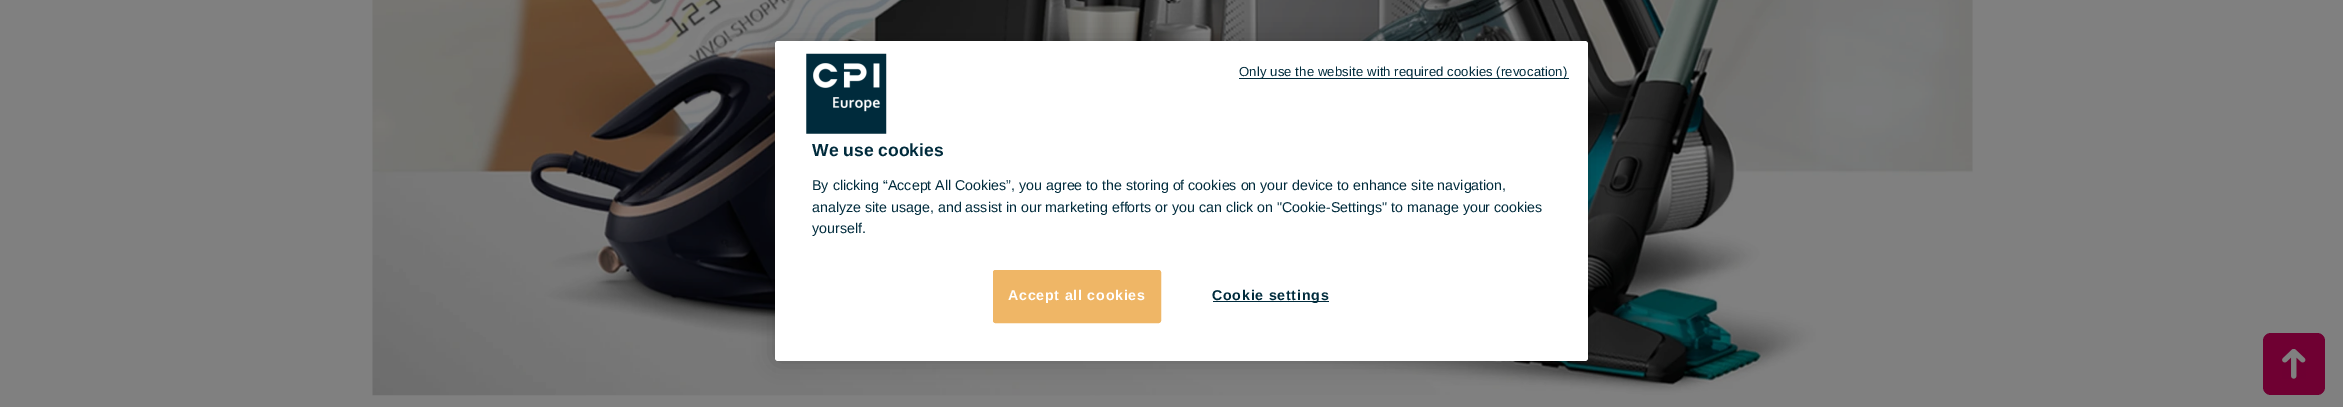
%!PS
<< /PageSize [2343 407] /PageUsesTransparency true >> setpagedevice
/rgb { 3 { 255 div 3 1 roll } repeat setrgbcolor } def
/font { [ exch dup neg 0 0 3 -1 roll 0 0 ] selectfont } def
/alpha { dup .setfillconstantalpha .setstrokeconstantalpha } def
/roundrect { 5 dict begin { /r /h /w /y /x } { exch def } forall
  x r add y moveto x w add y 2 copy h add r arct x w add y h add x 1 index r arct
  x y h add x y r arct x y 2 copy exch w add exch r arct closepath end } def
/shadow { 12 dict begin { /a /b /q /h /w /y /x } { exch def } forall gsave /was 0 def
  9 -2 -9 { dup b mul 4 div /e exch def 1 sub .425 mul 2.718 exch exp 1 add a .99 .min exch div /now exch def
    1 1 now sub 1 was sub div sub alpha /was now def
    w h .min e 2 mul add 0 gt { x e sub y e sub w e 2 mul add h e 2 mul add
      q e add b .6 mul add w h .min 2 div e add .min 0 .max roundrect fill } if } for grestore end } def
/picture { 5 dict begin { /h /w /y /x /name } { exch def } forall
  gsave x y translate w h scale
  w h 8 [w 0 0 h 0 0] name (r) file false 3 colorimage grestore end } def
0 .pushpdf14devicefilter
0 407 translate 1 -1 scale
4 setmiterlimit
128 128 128 rgb
0 0 2343 407 rectfill
(img/1.rgb) 372 0 1601 396 picture
111 0 50 rgb
2263 333 62 62 8 roundrect fill
(img/2.rgb) 2282 349 24 30 picture
0 0 0 rgb
775 41 813 320 3 11 0.2 shadow
255 255 255 rgb
775 41 813 320 3 roundrect fill
0 43 60 rgb
1239 78 330 1 rectfill
(img/3.rgb) 806 53 81 81 picture
239 182 102 rgb
993.5 270.5 167 52 2 roundrect gsave fill grestore
stroke
0 43 60 rgb
1213 301 116 1 rectfill
/LiberationSans-Regular 13.1 font
1239 76 moveto 0.13 0 (Only use the website with required cookies \(revocation\)) ashow
/LiberationSans-Bold 17.5 font
812 156 moveto (We use cookies) show
/LiberationSans-Regular 14.23 font
[
  [(By clicking “Accept All Cookies”, you agree to the storing of cookies on your device to enhance site navigation,) 812 190]
  [(analyze site usage, and assist in our marketing efforts or you can click on "Cookie-Settings" to manage your cookies) 812 212]
  [(yourself.) 812 233]
] { aload pop moveto show } forall
/LiberationSans-Bold 14.23 font
255 255 255 rgb
1008 300 moveto 0.75 0 (Accept all cookies) ashow
0 43 60 rgb
1212 300 moveto 0.75 0 (Cookie settings) ashow
.poppdf14devicefilter showpage
